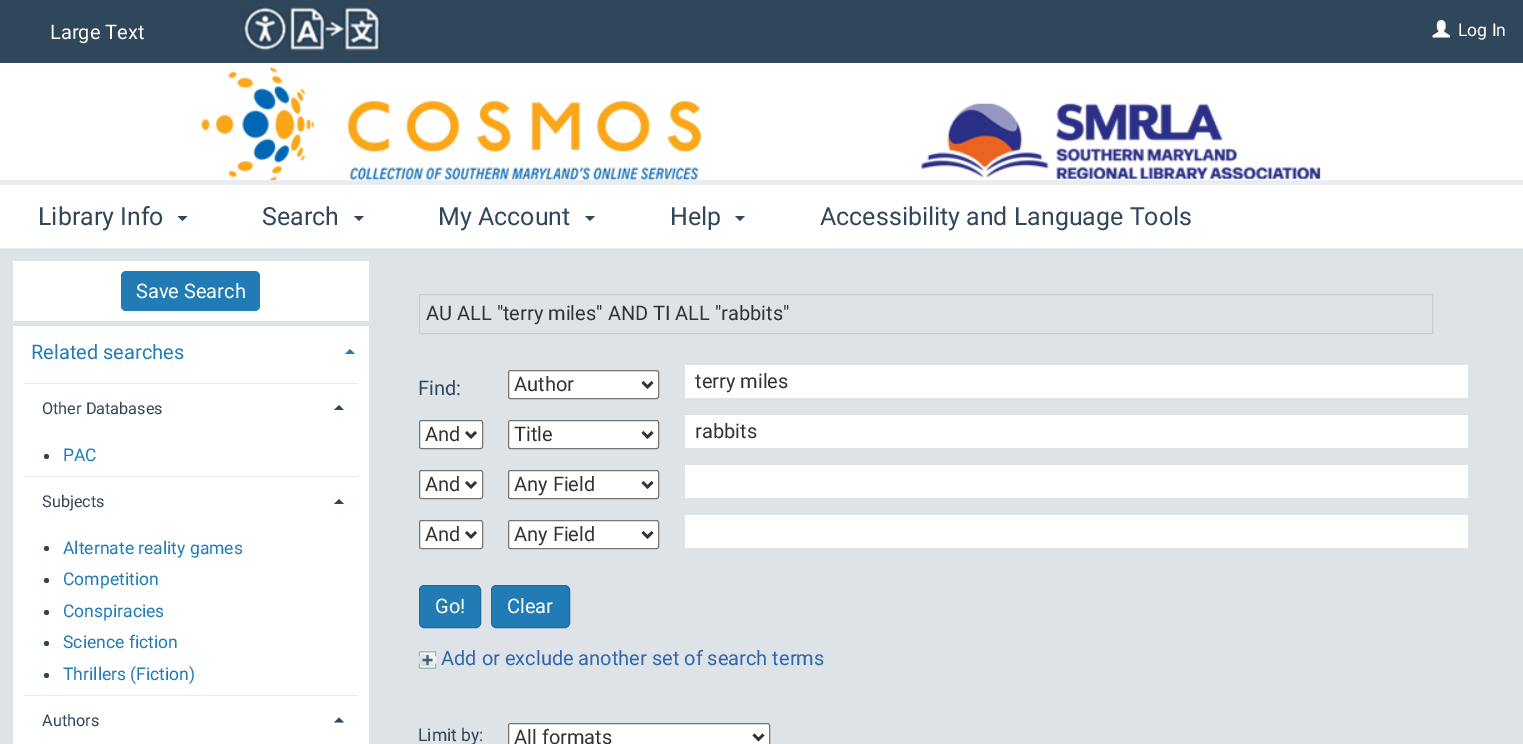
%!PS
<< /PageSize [1523 744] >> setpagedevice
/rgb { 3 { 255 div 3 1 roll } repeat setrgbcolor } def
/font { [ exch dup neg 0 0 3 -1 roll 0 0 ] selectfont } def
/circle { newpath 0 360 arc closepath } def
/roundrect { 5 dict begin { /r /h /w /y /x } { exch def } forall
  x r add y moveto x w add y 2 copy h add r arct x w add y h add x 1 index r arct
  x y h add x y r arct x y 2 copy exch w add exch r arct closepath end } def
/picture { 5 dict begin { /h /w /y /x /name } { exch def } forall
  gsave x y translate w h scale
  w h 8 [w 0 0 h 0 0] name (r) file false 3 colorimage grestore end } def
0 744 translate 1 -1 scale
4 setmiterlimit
48 70 91 rgb
0 0 1523 744 rectfill
234 237 240 rgb
0 248 1523 1 rectfill
(img/1.rgb) 243 7 138 44 picture
255 255 255 rgb
0 185 1523 63 rectfill
234 237 240 rgb
0 180 1523 5 rectfill
48 70 91 rgb
177.5 216 moveto 187.5 216 lineto 182.5 221 lineto closepath fill
354 216 moveto 364 216 lineto 359 221 lineto closepath fill
585 216 moveto 595 216 lineto 590 221 lineto closepath fill
735 216 moveto 745 216 lineto 740 221 lineto closepath fill
(img/2.rgb) 1432 20 18 18 picture
255 255 255 rgb
0 63 1523 117 rectfill
(img/3.rgb) 201 67 1120 113 picture
222 227 232 rgb
0 249 1523 495 rectfill
255 255 255 rgb
13 261 356 60 rectfill
33 124 181 rgb
121 271 139 40 5 roundrect fill
255 255 255 rgb
13 326 356 418 rectfill
33 124 181 rgb
355 354 moveto 345 354 lineto 350 349 lineto closepath fill
229 235 241 rgb
24 383 334 1 rectfill
48 70 91 rgb
344 410 moveto 334 410 lineto 339 405 lineto closepath fill
46.5 456.5 2.5 circle fill
229 235 241 rgb
24 476 334 1 rectfill
48 70 91 rgb
344 504 moveto 334 504 lineto 339 499 lineto closepath fill
46.5 548.5 2.5 circle fill
46.5 580.5 2.5 circle fill
46.5 612.5 2.5 circle fill
46.5 643.5 2.5 circle fill
46.5 675.5 2.5 circle fill
229 235 241 rgb
24 695 334 1 rectfill
48 70 91 rgb
344 722.5 moveto 334 722.5 lineto 339 717.5 lineto closepath fill
204 204 204 rgb
419.5 294.5 1013 39 rectstroke
255 255 255 rgb
508.5 370.5 150 28 2 roundrect gsave fill grestore
118 118 118 rgb
stroke
51 51 51 rgb
2.5 setlinewidth
642.5 382 moveto 647.5 387 lineto 652.5 382 lineto stroke
255 255 255 rgb
685 365 783 33 rectfill
419.5 420.5 63 28 2 roundrect gsave fill grestore
118 118 118 rgb
1 setlinewidth
stroke
51 51 51 rgb
2.5 setlinewidth
466 432 moveto 471 437 lineto 476 432 lineto stroke
255 255 255 rgb
508.5 420.5 150 28 2 roundrect gsave fill grestore
118 118 118 rgb
1 setlinewidth
stroke
51 51 51 rgb
2.5 setlinewidth
642.5 432 moveto 647.5 437 lineto 652.5 432 lineto stroke
255 255 255 rgb
685 415 783 33 rectfill
419.5 470.5 63 28 2 roundrect gsave fill grestore
118 118 118 rgb
1 setlinewidth
stroke
51 51 51 rgb
2.5 setlinewidth
466 482 moveto 471 487 lineto 476 482 lineto stroke
255 255 255 rgb
508.5 470.5 150 28 2 roundrect gsave fill grestore
118 118 118 rgb
1 setlinewidth
stroke
51 51 51 rgb
2.5 setlinewidth
642.5 482 moveto 647.5 487 lineto 652.5 482 lineto stroke
255 255 255 rgb
685 465 783 33 rectfill
419.5 520.5 63 28 2 roundrect gsave fill grestore
118 118 118 rgb
1 setlinewidth
stroke
51 51 51 rgb
2.5 setlinewidth
466 532 moveto 471 537 lineto 476 532 lineto stroke
255 255 255 rgb
508.5 520.5 150 28 2 roundrect gsave fill grestore
118 118 118 rgb
1 setlinewidth
stroke
51 51 51 rgb
2.5 setlinewidth
642.5 532 moveto 647.5 537 lineto 652.5 532 lineto stroke
255 255 255 rgb
685 515 783 33 rectfill
33 124 181 rgb
419.5 585.5 61 42 4.5 roundrect gsave fill grestore
29 109 159 rgb
1 setlinewidth
stroke
33 124 181 rgb
491.5 585.5 78 42 4.5 roundrect gsave fill grestore
29 109 159 rgb
stroke
(img/4.rgb) 418 651 19 18 picture
255 255 255 rgb
508.5 723.5 261 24 2 roundrect gsave fill grestore
118 118 118 rgb
stroke
51 51 51 rgb
2.5 setlinewidth
753.5 734.5 moveto 758.5 739.5 lineto 763.5 734.5 lineto stroke
/Roboto-Regular 20 font
255 255 255 rgb
50 39 moveto (Large Text) show
/Roboto-Regular 25 font
48 70 91 rgb
[
  [(Library Info) 38 225]
  [(Search) 262 225]
  [(My Account) 438 225]
  [(Help) 670 225]
  [(Accessibility and Language Tools) 820 225]
] { aload pop moveto show } forall
/Roboto-Regular 17.5 font
255 255 255 rgb
1458 36 moveto (Log In) show
/Roboto-Regular 20 font
136 298 moveto (Save Search) show
33 124 181 rgb
31 359 moveto (Related searches) show
/Roboto-Regular 16.25 font
48 70 91 rgb
42 414 moveto (Other Databases) show
/Roboto-Regular 17.5 font
33 124 181 rgb
63 461 moveto (PAC) show
/Roboto-Regular 16.25 font
48 70 91 rgb
42 507 moveto (Subjects) show
/Roboto-Regular 17.5 font
33 124 181 rgb
[
  [(Alternate reality games) 63 554]
  [(Competition) 63 585]
  [(Conspiracies) 63 617]
  [(Science fiction) 63 648]
  [(Thrillers \(Fiction\)) 63 680]
] { aload pop moveto show } forall
/Roboto-Regular 16.25 font
48 70 91 rgb
42 726 moveto (Authors) show
/Roboto-Regular 20 font
51 51 51 rgb
426 320 moveto (AU ALL "terry miles" AND TI ALL "rabbits") show
48 70 91 rgb
418 395 moveto (Find:) show
51 51 51 rgb
[
  [(Author) 514 391]
  [(terry miles) 695 388]
  [(And) 425 441]
  [(Title) 514 441]
  [(rabbits) 695 438]
  [(And) 425 491]
  [(Any Field) 514 491]
  [(And) 425 541]
  [(Any Field) 514 541]
] { aload pop moveto show } forall
255 255 255 rgb
435 613 moveto (Go!) show
507 613 moveto (Clear) show
49 102 170 rgb
441 665 moveto (Add or exclude another set of search terms) show
/Roboto-Regular 17.5 font
48 70 91 rgb
418 741 moveto (Limit by:) show
/Roboto-Regular 20 font
51 51 51 rgb
514 744 moveto (All formats) show
showpage
